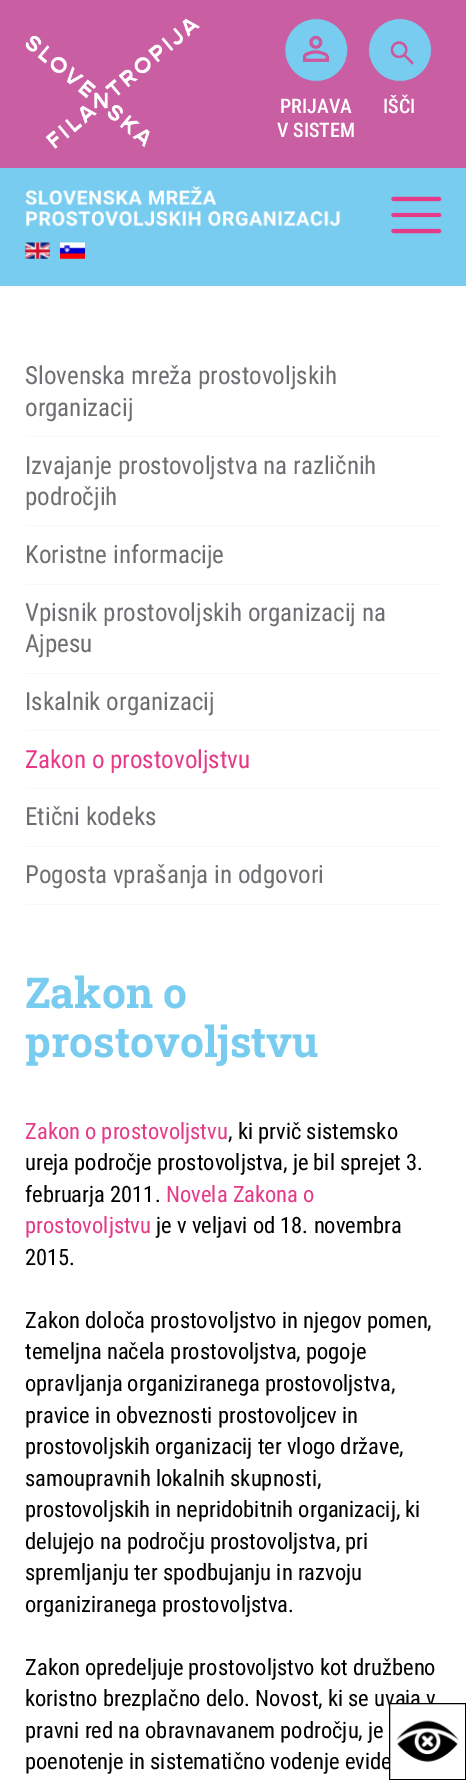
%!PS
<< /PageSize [466 1780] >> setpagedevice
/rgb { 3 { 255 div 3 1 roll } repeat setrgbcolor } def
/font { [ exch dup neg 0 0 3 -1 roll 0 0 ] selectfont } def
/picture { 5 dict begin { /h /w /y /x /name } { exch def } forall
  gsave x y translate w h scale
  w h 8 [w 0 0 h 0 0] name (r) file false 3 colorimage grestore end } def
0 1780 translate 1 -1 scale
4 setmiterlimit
255 255 255 rgb
0 0 466 1780 rectfill
201 95 162 rgb
0 0 466 168 rectfill
(img/1.rgb) 25 18 175 131 picture
(img/2.rgb) 285 18 63 64 picture
(img/3.rgb) 368 18 64 64 picture
120 204 240 rgb
0 168 466 118 rectfill
(img/4.rgb) 25 186 316 41 picture
(img/5.rgb) 25 242 25 17 picture
(img/6.rgb) 60 242 25 17 picture
(img/7.rgb) 391 196 51 38 picture
[
  [25 436 416 1 248 248 248]
  [25 525 416 1 248 248 248]
  [25 584 416 1 248 248 248]
  [25 673 416 1 248 248 248]
  [25 730 416 1 248 248 248]
  [25 788 416 1 248 248 248]
  [25 846 416 1 248 248 248]
  [25 904 416 1 248 248 248]
] { aload pop rgb rectfill } forall
/RobotoCondensed-Medium 20 font
255 255 255 rgb
[
  [(PRIJAVA) 280 113]
  [(V SISTEM) 277 137]
  [(IŠČI) 383 113]
] { aload pop moveto show } forall
/RobotoCondensed-Regular 25 font
109 110 113 rgb
[
  [(Slovenska mreža prostovoljskih) 25 384]
  [(organizacij) 25 416]
  [(Izvajanje prostovoljstva na različnih) 25 474]
  [(področjih) 25 505]
  [(Koristne informacije) 25 563]
  [(Vpisnik prostovoljskih organizacij na) 25 621]
  [(Ajpesu) 25 652]
  [(Iskalnik organizacij) 25 710]
] { aload pop moveto show } forall
228 58 136 rgb
25 768 moveto (Zakon o prostovoljstvu) show
109 110 113 rgb
25 825 moveto (Etični kodeks) show
25 883 moveto (Pogosta vprašanja in odgovori) show
/RobotoSlab-Bold 42.5 font
120 204 240 rgb
25 1008 moveto (Zakon o) show
25 1057 moveto (prostovoljstvu) show
/RobotoCondensed-Regular 22.5 font
228 58 136 rgb
25 1139 moveto (Zakon o prostovoljstvu) show
0 0 0 rgb
[
  [(, ki prvič sistemsko) 228 1139]
  [(ureja področje prostovoljstva, je bil sprejet 3.) 25 1170]
  [(februarja 2011.) 25 1202]
] { aload pop moveto show } forall
228 58 136 rgb
166 1202 moveto (Novela Zakona o) show
25 1233 moveto (prostovoljstvu) show
0 0 0 rgb
[
  [(je v veljavi od 18. novembra) 156 1233]
  [(2015.) 25 1265]
  [(Zakon določa prostovoljstvo in njegov pomen,) 25 1328]
  [(temeljna načela prostovoljstva, pogoje) 25 1359]
  [(opravljanja organiziranega prostovoljstva,) 25 1391]
  [(pravice in obveznosti prostovoljcev in) 25 1423]
  [(prostovoljskih organizacij ter vlogo države,) 25 1454]
  [(samoupravnih lokalnih skupnosti,) 25 1486]
  [(prostovoljskih in nepridobitnih organizacij, ki) 25 1517]
  [(delujejo na področju prostovoljstva, pri) 25 1549]
  [(spremljanju ter spodbujanju in razvoju) 25 1580]
  [(organiziranega prostovoljstva.) 25 1612]
  [(Zakon opredeljuje prostovoljstvo kot družbeno) 25 1675]
  [(koristno brezplačno delo. Novost, ki se uvaja v) 25 1706]
  [(pravni red na obravnavanem področju, je) 25 1738]
  [(poenotenje in sistematično vodenje evide) 25 1769]
] { aload pop moveto show } forall
255 255 255 rgb
390 1704 43 65 rectfill
0 0 0 rgb
389.5 1703.5 76 76 rectstroke
(img/8.rgb) 396 1720 63 42 picture
showpage
